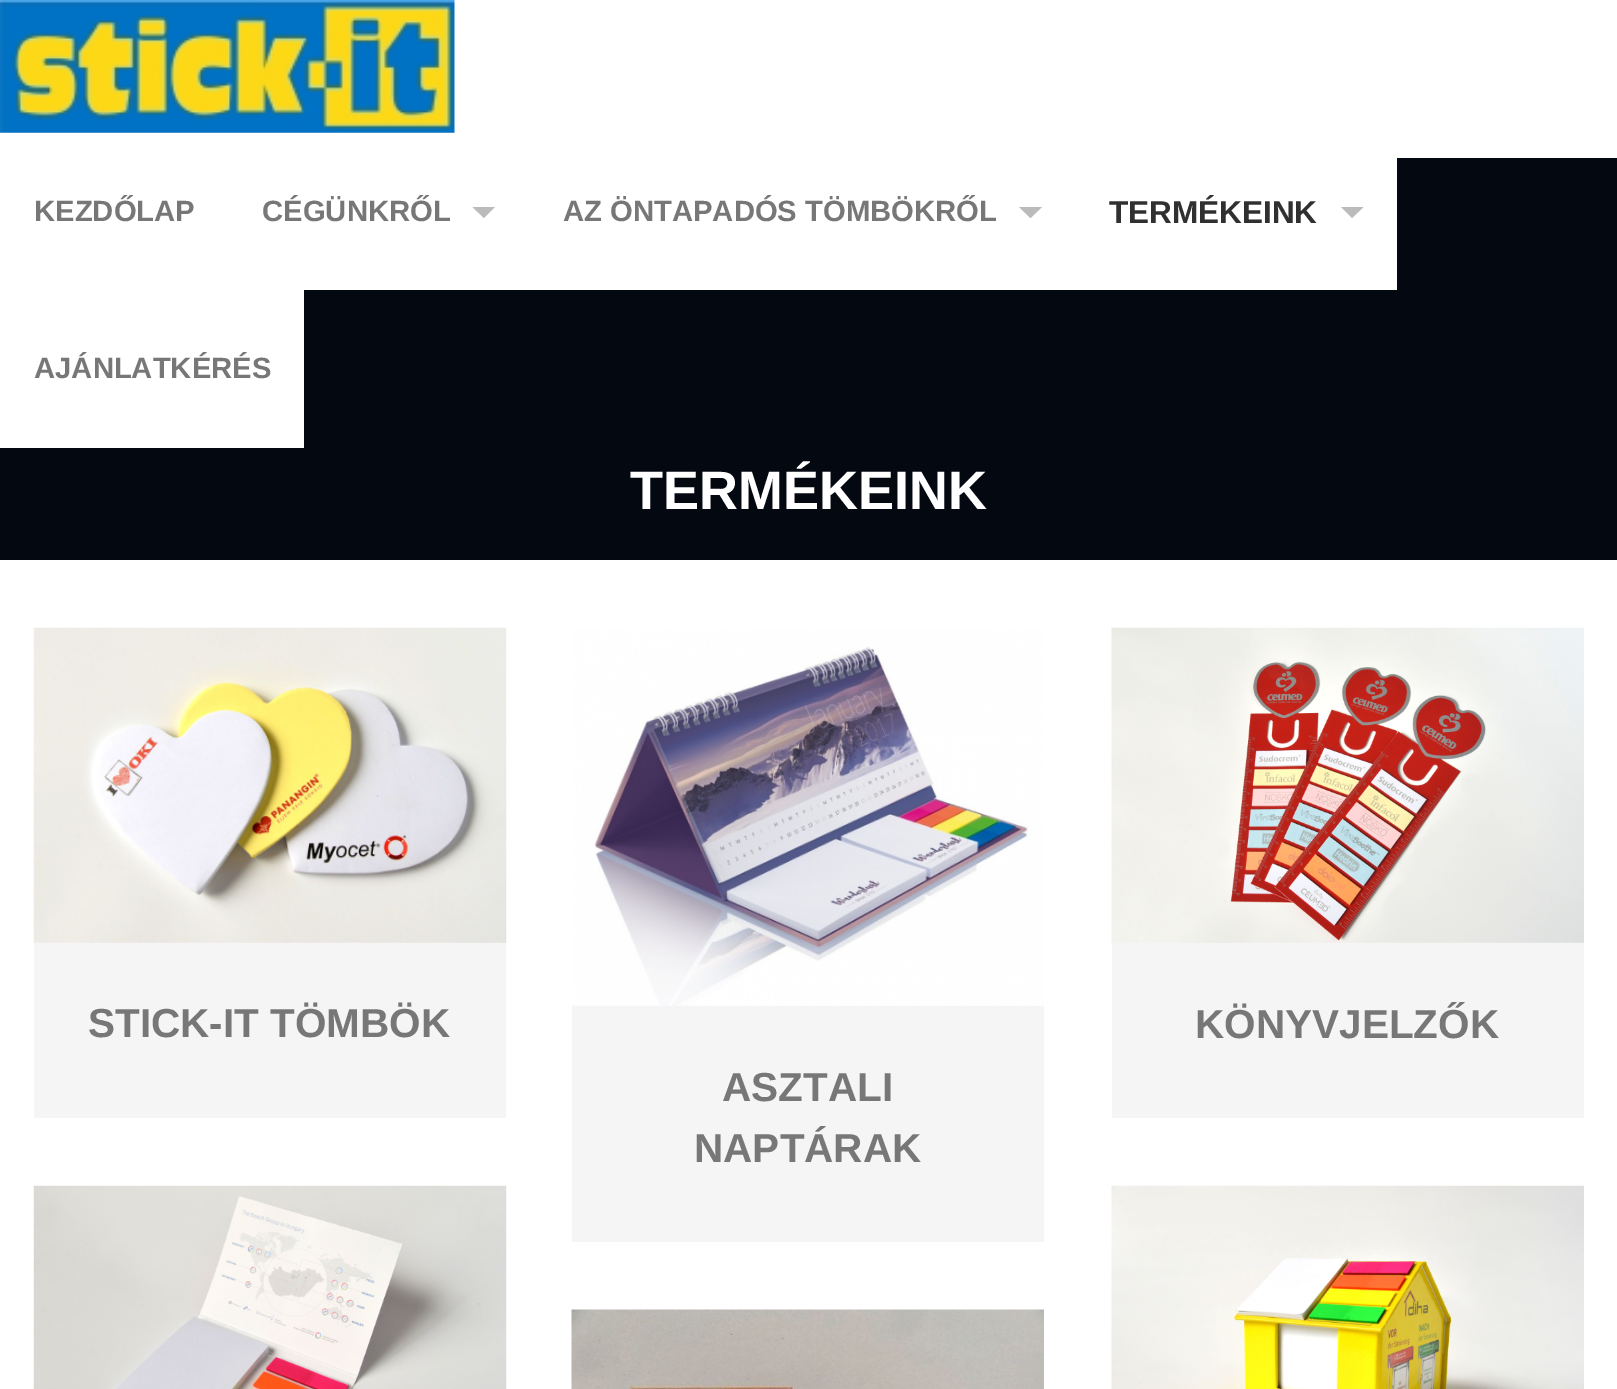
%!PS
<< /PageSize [1617 1389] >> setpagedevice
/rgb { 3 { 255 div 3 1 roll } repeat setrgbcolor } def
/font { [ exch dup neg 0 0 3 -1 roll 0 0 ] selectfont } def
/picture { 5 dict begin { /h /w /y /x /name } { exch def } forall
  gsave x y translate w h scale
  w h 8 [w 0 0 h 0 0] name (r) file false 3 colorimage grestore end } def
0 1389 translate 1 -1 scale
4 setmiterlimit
255 255 255 rgb
0 0 1617 1389 rectfill
(img/1.rgb) 0 0 455 133 picture
4 9 17 rgb
0 158 1617 402 rectfill
255 255 255 rgb
0 158 1397 132 rectfill
187 187 187 rgb
472.5 207 moveto 495 207 lineto 484 218 lineto closepath fill
1019 207 moveto 1042 207 lineto 1030.5 218 lineto closepath fill
1341 207 moveto 1363.5 207 lineto 1352 218 lineto closepath fill
255 255 255 rgb
0 290 304 158 rectfill
245 245 245 rgb
34 942 472 176 rectfill
(img/2.rgb) 33 627 474 316 picture
1112 942 472 176 rectfill
(img/3.rgb) 1111 627 473 316 picture
572 1005 472 237 rectfill
(img/4.rgb) 572 628 472 378 picture
(img/5.rgb) 33 1185 474 204 picture
(img/6.rgb) 571 1309 473 80 picture
(img/7.rgb) 1111 1185 473 204 picture
/LiberationSans-Bold 29.25 font
119 119 119 rgb
[
  [(KEZDŐLAP) 34 221]
  [(CÉGÜNKRŐL) 262 221]
  [(AZ ÖNTAPADÓS TÖMBÖKRŐL) 563 221]
] { aload pop moveto show } forall
/LiberationSans-Bold 31.5 font
48 48 48 rgb
1109 223 moveto (TERMÉKEINK) show
/LiberationSans-Bold 29.25 font
119 119 119 rgb
34 378 moveto (AJÁNLATKÉRÉS) show
/LiberationSans-Bold 54 font
255 255 255 rgb
630 509 moveto (TERMÉKEINK) show
/LiberationSans-Bold 40.5 font
119 119 119 rgb
[
  [(STICK-IT TÖMBÖK) 88 1037]
  [(KÖNYVJELZŐK) 1195 1038]
  [(ASZTALI) 722 1101]
  [(NAPTÁRAK) 694 1162]
] { aload pop moveto show } forall
showpage
